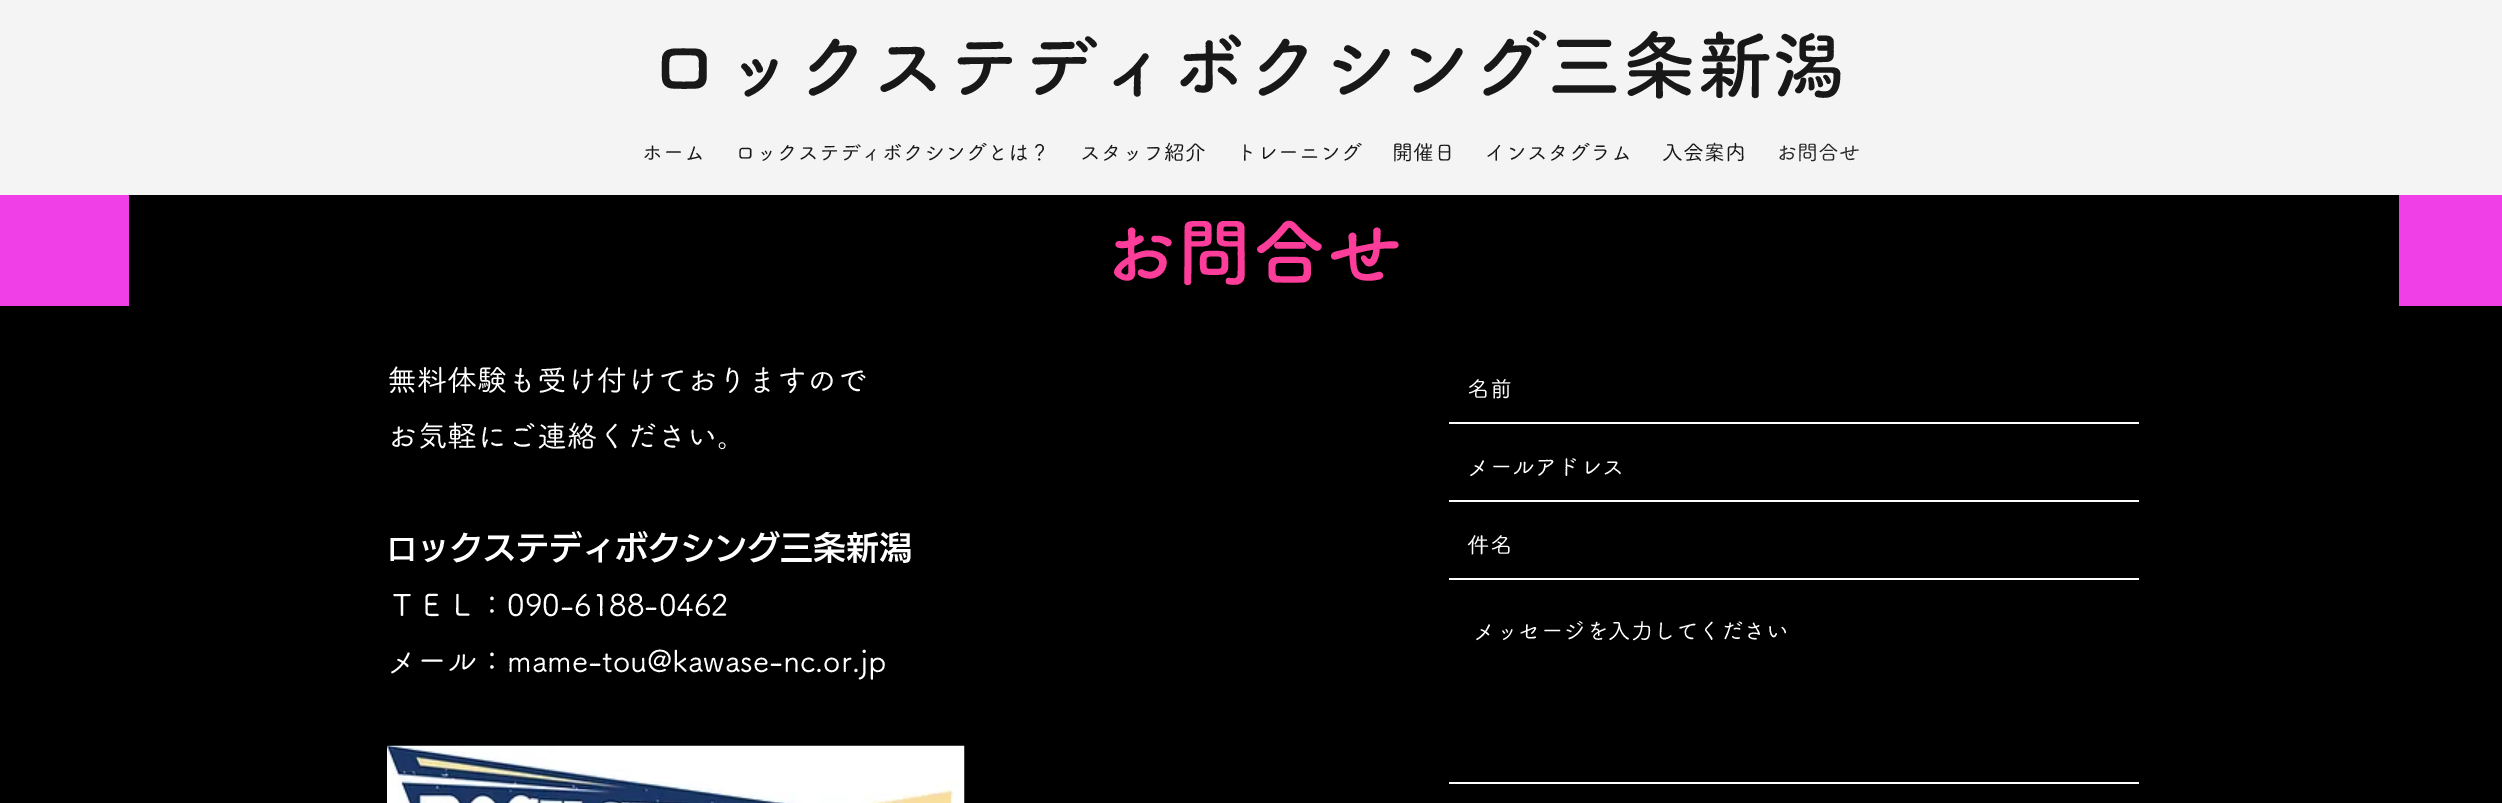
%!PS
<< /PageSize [2502 803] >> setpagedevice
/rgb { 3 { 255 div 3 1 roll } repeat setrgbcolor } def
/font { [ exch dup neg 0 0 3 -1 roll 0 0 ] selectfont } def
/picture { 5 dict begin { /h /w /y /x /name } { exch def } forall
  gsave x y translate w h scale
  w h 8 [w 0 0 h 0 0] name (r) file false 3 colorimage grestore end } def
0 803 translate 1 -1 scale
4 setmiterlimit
241 63 231 rgb
0 0 2502 803 rectfill
[
  [0 0 2502 195 245 244 245]
  [129 195 2270 111 0 0 0]
  [0 306 2502 497 0 0 0]
] { aload pop rgb rectfill } forall
(img/1.rgb) 387 745 578 58 picture
[
  [1449 422 690 2 255 255 255]
  [1449 500 690 2 255 255 255]
  [1449 578 690 2 255 255 255]
  [1449 782 690 2 255 255 255]
] { aload pop rgb rectfill } forall
/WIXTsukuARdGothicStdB-Bold 75 font
24 24 24 rgb
647 93 moveto (ロックステディボクシング三条新潟) show
/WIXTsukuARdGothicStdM-Medium 21 font
[
  [(ホーム) 642 160]
  [(ロックステディボクシングとは？) 735 160]
  [(スタッフ紹介) 1080 160]
  [(トレーニング) 1236 160]
  [(開催日) 1392 160]
  [(インスタグラム) 1485 160]
  [(入会案内) 1662 160]
] { aload pop moveto show } forall
39 39 39 rgb
1776 160 moveto (お問合せ) show
/WIXTsukuARdGothicStdB-Bold 75 font
252 61 153 rgb
1102 280 moveto (お問合せ) show
/WIXTsukuARdGothicStdM-Medium 30 font
255 255 255 rgb
387 391 moveto (無料体験も受け付けておりますので) show
387 447 moveto (お気軽にご連絡ください。) show
/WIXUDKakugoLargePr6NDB-SemiBold 30 font
387 560 moveto (ロ) show
/WIXUDKakugoLargePr6NDB-SemiBold 33 font
417 560 moveto (ックステディボクシング三条新潟) show
/WIXTsukuARdGothicStdM-Medium 30 font
387 616 moveto (ＴＥＬ：090-6188-0462) show
387 672 moveto (メール：mame-tou@kawase-nc.or.jp) show
/WIXTsukuARdGothicStdM-Medium 22.5 font
[
  [(名前) 1467 397]
  [(メールアドレス) 1467 475]
  [(件名) 1467 553]
  [(メッセージを入力してください) 1473 639]
] { aload pop moveto show } forall
showpage
